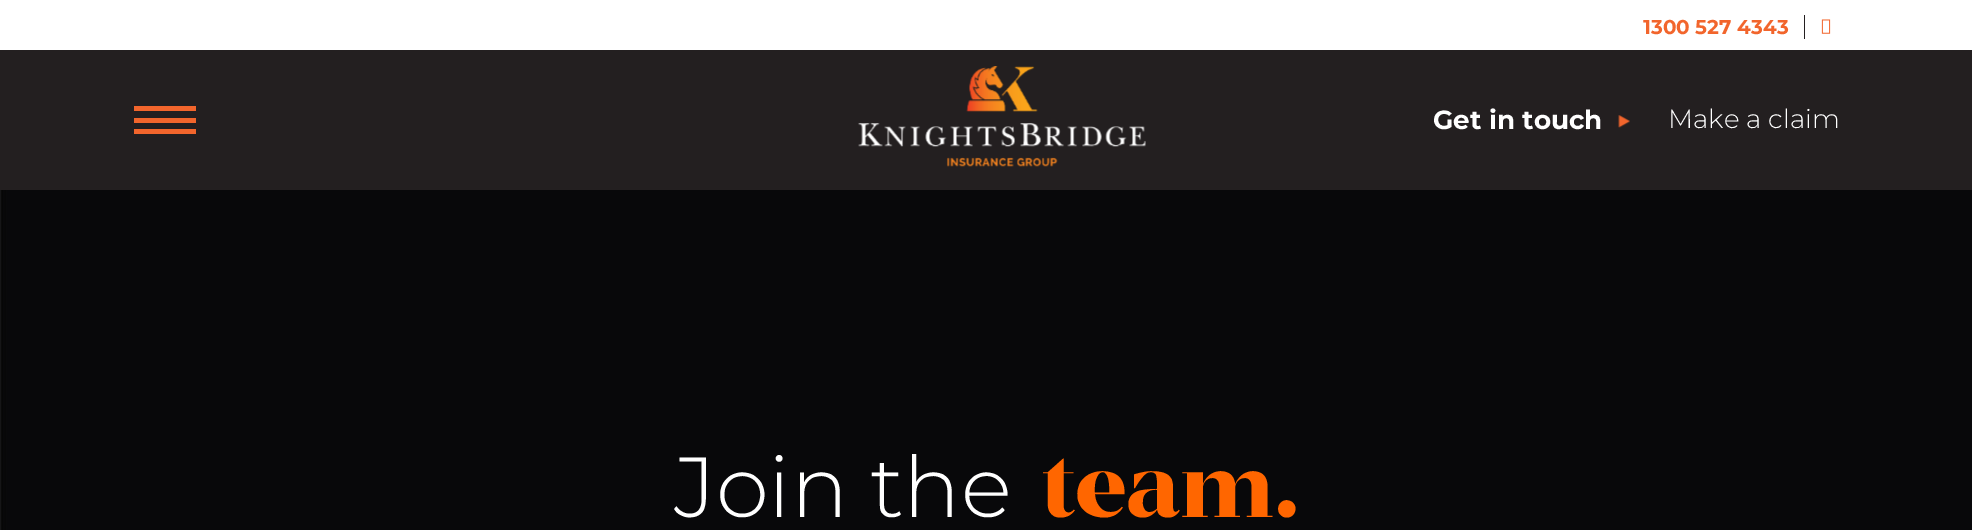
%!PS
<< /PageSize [1972 530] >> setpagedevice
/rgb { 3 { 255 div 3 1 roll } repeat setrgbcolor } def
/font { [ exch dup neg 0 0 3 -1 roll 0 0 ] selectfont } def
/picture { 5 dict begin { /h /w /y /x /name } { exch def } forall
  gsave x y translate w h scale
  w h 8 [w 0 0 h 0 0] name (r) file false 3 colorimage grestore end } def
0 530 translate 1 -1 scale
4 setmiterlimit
255 255 255 rgb
0 0 1972 530 rectfill
35 31 32 rgb
1804 15 1 24 rectfill
(img/1.rgb) 1821 19 10 15 picture
[
  [0 50 1972 140 35 31 32]
  [134 106 62 5 242 101 44]
  [134 118 62 5 242 101 44]
  [134 129 62 5 242 101 44]
] { aload pop rgb rectfill } forall
(img/2.rgb) 858 66 288 101 picture
(img/3.rgb) 1618 115 12 13 picture
(img/4.rgb) 0 190 1972 340 picture
/Montserrat-Bold 20 font
1643 34 moveto (1300 527 4343) show
/Montserrat-Bold 26.25 font
255 255 255 rgb
1433 129 moveto (Get in touch) show
/Montserrat-Light 26.25 font
1668 128 moveto (Make a claim) show
/Montserrat-Light 85 font
674 517 moveto (Join the) show
/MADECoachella-Medium 85 font
255 102 0 rgb
1042 517 moveto (team.) show
showpage
